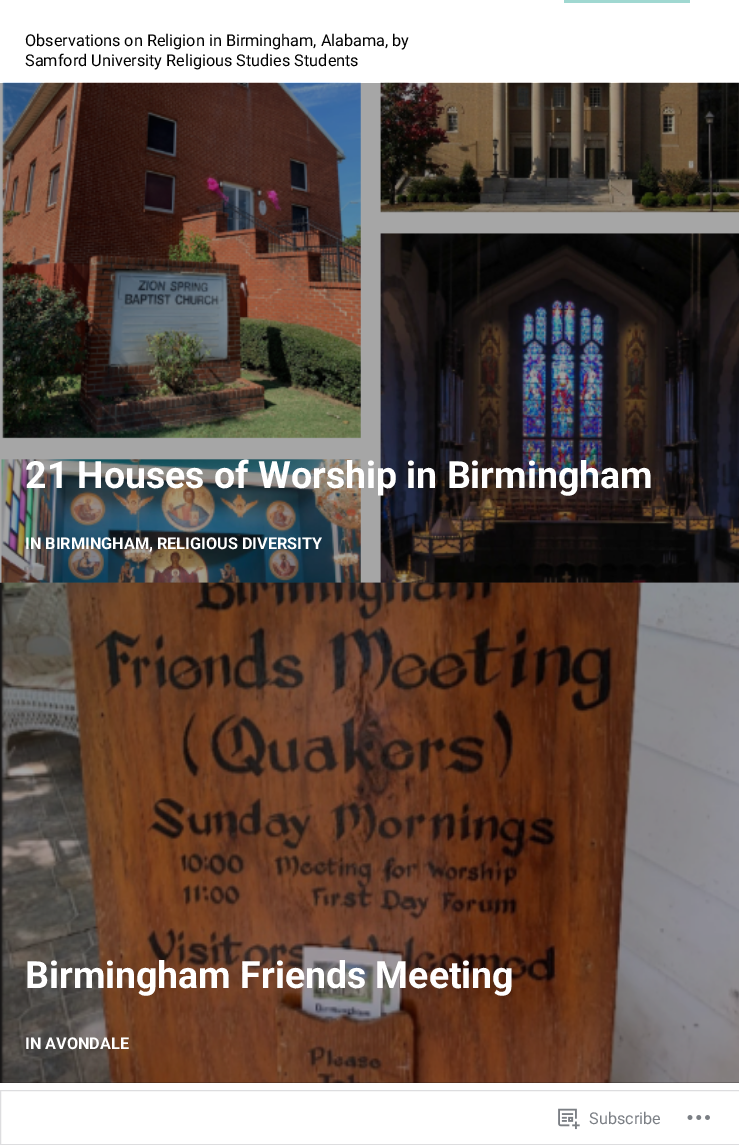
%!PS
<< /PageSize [739 1145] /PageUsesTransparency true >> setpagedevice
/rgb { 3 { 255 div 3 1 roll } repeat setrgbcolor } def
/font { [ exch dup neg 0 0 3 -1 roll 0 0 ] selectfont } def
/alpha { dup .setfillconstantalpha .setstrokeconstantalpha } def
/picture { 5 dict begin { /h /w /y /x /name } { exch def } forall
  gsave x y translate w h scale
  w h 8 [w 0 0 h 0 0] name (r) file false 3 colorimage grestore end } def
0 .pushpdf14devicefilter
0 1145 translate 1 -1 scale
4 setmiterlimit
255 255 255 rgb
0 0 739 1145 rectfill
160 216 209 rgb
564 0 126 3 rectfill
(img/1.rgb) 0 82 739 501 picture
24 23 23 rgb
0 583 739 500 rectfill
(img/2.rgb) 1 582 738 501 picture
0.98 alpha
220 220 222 rgb
0.5 1090.5 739 54 rectstroke
1 alpha
(img/3.rgb) 558 1108 22 22 picture
(img/4.rgb) 687 1115 23 5 picture
/Roboto-Regular 16.25 font
0 0 0 rgb
25 46 moveto (Observations on Religion in Birmingham, Alabama, by) show
25 66 moveto (Samford University Religious Studies Students) show
/Roboto-Bold 37.5 font
255 255 255 rgb
25 488 moveto (21 Houses of Worship in Birmingham) show
/Roboto-Bold 16.25 font
25 549 moveto (IN BIRMINGHAM, RELIGIOUS DIVERSITY) show
/Roboto-Bold 37.5 font
25 988 moveto (Birmingham Friends Meeting) show
/Roboto-Bold 16.25 font
25 1049 moveto (IN AVONDALE) show
/Roboto-Regular 16.25 font
123 127 133 rgb
589 1124 moveto (Subscribe) show
.poppdf14devicefilter showpage
